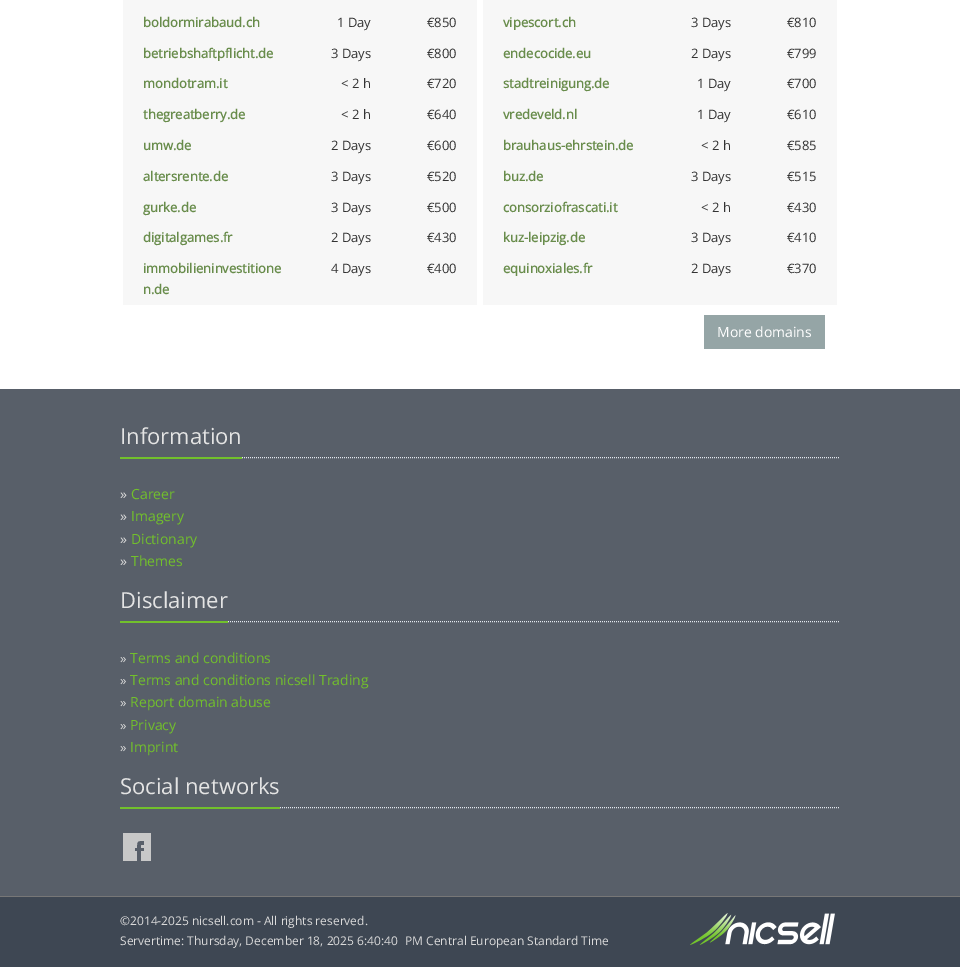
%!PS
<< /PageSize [960 967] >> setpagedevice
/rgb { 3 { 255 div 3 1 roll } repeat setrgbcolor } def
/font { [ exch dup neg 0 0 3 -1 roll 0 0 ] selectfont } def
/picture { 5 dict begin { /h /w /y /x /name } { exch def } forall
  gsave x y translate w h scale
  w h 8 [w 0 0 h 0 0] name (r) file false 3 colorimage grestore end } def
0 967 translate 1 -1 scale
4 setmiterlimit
255 255 255 rgb
0 0 960 967 rectfill
[
  [123 0 354 305 247 247 247]
  [483 0 354 305 247 247 247]
  [704 315 121 34 149 165 166]
  [0 389 960 507 88 95 105]
] { aload pop rgb rectfill } forall
228 233 240 rgb
[1 1] 0 setdash
120 457.5 moveto 840 457.5 lineto stroke
114 192 44 rgb
120 457 122 2 rectfill
228 233 240 rgb
120 621.5 moveto 840 621.5 lineto stroke
114 192 44 rgb
120 621 108 2 rectfill
228 233 240 rgb
120 807.5 moveto 840 807.5 lineto stroke
114 192 44 rgb
120 807 160 2 rectfill
(img/1.rgb) 123 833 28 28 picture
62 71 83 rgb
0 897 960 70 rectfill
119 119 119 rgb
0 896 960 1 rectfill
(img/2.rgb) 690 913 145 32 picture
/OpenSans-Bold 13 font
104 140 75 rgb
143 27 moveto (boldormirabaud.ch) show
/OpenSans-Regular 13 font
51 51 51 rgb
337 27 moveto (1 Day) show
427 27 moveto (€850) show
/OpenSans-Bold 13 font
104 140 75 rgb
503 27 moveto (vipescort.ch) show
/OpenSans-Regular 13 font
51 51 51 rgb
691 27 moveto (3 Days) show
787 27 moveto (€810) show
/OpenSans-Bold 13 font
104 140 75 rgb
143 58 moveto (betriebshaftpflicht.de) show
/OpenSans-Regular 13 font
51 51 51 rgb
331 58 moveto (3 Days) show
427 58 moveto (€800) show
/OpenSans-Bold 13 font
104 140 75 rgb
503 58 moveto (endecocide.eu) show
/OpenSans-Regular 13 font
51 51 51 rgb
691 58 moveto (2 Days) show
787 58 moveto (€799) show
/OpenSans-Bold 13 font
104 140 75 rgb
143 88 moveto (mondotram.it) show
/OpenSans-Regular 13 font
51 51 51 rgb
341 88 moveto (< 2 h) show
427 88 moveto (€720) show
/OpenSans-Bold 13 font
104 140 75 rgb
503 88 moveto (stadtreinigung.de) show
/OpenSans-Regular 13 font
51 51 51 rgb
697 88 moveto (1 Day) show
787 88 moveto (€700) show
/OpenSans-Bold 13 font
104 140 75 rgb
143 119 moveto (thegreatberry.de) show
/OpenSans-Regular 13 font
51 51 51 rgb
341 119 moveto (< 2 h) show
427 119 moveto (€640) show
/OpenSans-Bold 13 font
104 140 75 rgb
503 119 moveto (vredeveld.nl) show
/OpenSans-Regular 13 font
51 51 51 rgb
697 119 moveto (1 Day) show
787 119 moveto (€610) show
/OpenSans-Bold 13 font
104 140 75 rgb
143 150 moveto (umw.de) show
/OpenSans-Regular 13 font
51 51 51 rgb
331 150 moveto (2 Days) show
427 150 moveto (€600) show
/OpenSans-Bold 13 font
104 140 75 rgb
503 150 moveto (brauhaus-ehrstein.de) show
/OpenSans-Regular 13 font
51 51 51 rgb
701 150 moveto (< 2 h) show
787 150 moveto (€585) show
/OpenSans-Bold 13 font
104 140 75 rgb
143 181 moveto (altersrente.de) show
/OpenSans-Regular 13 font
51 51 51 rgb
331 181 moveto (3 Days) show
427 181 moveto (€520) show
/OpenSans-Bold 13 font
104 140 75 rgb
503 181 moveto (buz.de) show
/OpenSans-Regular 13 font
51 51 51 rgb
691 181 moveto (3 Days) show
787 181 moveto (€515) show
/OpenSans-Bold 13 font
104 140 75 rgb
143 212 moveto (gurke.de) show
/OpenSans-Regular 13 font
51 51 51 rgb
331 212 moveto (3 Days) show
427 212 moveto (€500) show
/OpenSans-Bold 13 font
104 140 75 rgb
503 212 moveto (consorziofrascati.it) show
/OpenSans-Regular 13 font
51 51 51 rgb
701 212 moveto (< 2 h) show
787 212 moveto (€430) show
/OpenSans-Bold 13 font
104 140 75 rgb
143 242 moveto (digitalgames.fr) show
/OpenSans-Regular 13 font
51 51 51 rgb
331 242 moveto (2 Days) show
427 242 moveto (€430) show
/OpenSans-Bold 13 font
104 140 75 rgb
503 242 moveto (kuz-leipzig.de) show
/OpenSans-Regular 13 font
51 51 51 rgb
691 242 moveto (3 Days) show
787 242 moveto (€410) show
/OpenSans-Bold 13 font
104 140 75 rgb
143 273 moveto (immobilieninvestitione) show
143 294 moveto (n.de) show
/OpenSans-Regular 13 font
51 51 51 rgb
331 273 moveto (4 Days) show
427 273 moveto (€400) show
/OpenSans-Bold 13 font
104 140 75 rgb
503 273 moveto (equinoxiales.fr) show
/OpenSans-Regular 13 font
51 51 51 rgb
691 273 moveto (2 Days) show
787 273 moveto (€370) show
/OpenSans-Regular 14 font
255 255 255 rgb
717 337 moveto (More domains) show
/OpenSans-Regular 22 font
228 228 228 rgb
120 444 moveto (Information) show
/OpenSans-Regular 14 font
218 218 218 rgb
120 499 moveto (») show
114 192 44 rgb
131 499 moveto (Career) show
218 218 218 rgb
120 521 moveto (») show
114 192 44 rgb
131 521 moveto (Imagery) show
218 218 218 rgb
120 544 moveto (») show
114 192 44 rgb
131 544 moveto (Dictionary) show
218 218 218 rgb
120 566 moveto (») show
114 192 44 rgb
131 566 moveto (Themes) show
/OpenSans-Regular 22 font
228 228 228 rgb
120 608 moveto (Disclaimer) show
/OpenSans-Regular 13 font
218 218 218 rgb
120 663 moveto (») show
/OpenSans-Regular 14 font
114 192 44 rgb
130 663 moveto (Terms and conditions) show
/OpenSans-Regular 13 font
218 218 218 rgb
120 685 moveto (») show
/OpenSans-Regular 14 font
114 192 44 rgb
130 685 moveto (Terms and conditions nicsell Trading) show
/OpenSans-Regular 13 font
218 218 218 rgb
120 707 moveto (») show
/OpenSans-Regular 14 font
114 192 44 rgb
130 707 moveto (Report domain abuse) show
/OpenSans-Regular 13 font
218 218 218 rgb
120 730 moveto (») show
/OpenSans-Regular 14 font
114 192 44 rgb
130 730 moveto (Privacy) show
/OpenSans-Regular 13 font
218 218 218 rgb
120 752 moveto (») show
/OpenSans-Regular 14 font
114 192 44 rgb
130 752 moveto (Imprint) show
/OpenSans-Regular 22 font
228 228 228 rgb
120 794 moveto (Social networks) show
/OpenSans-Regular 12 font
218 218 218 rgb
120 925 moveto (©2014-2025 nicsell.com - All rights reserved.) show
120 945 moveto (Servertime: Thursday, December 18, 2025 6:40:40 PM Central European Standard Time) show
showpage
